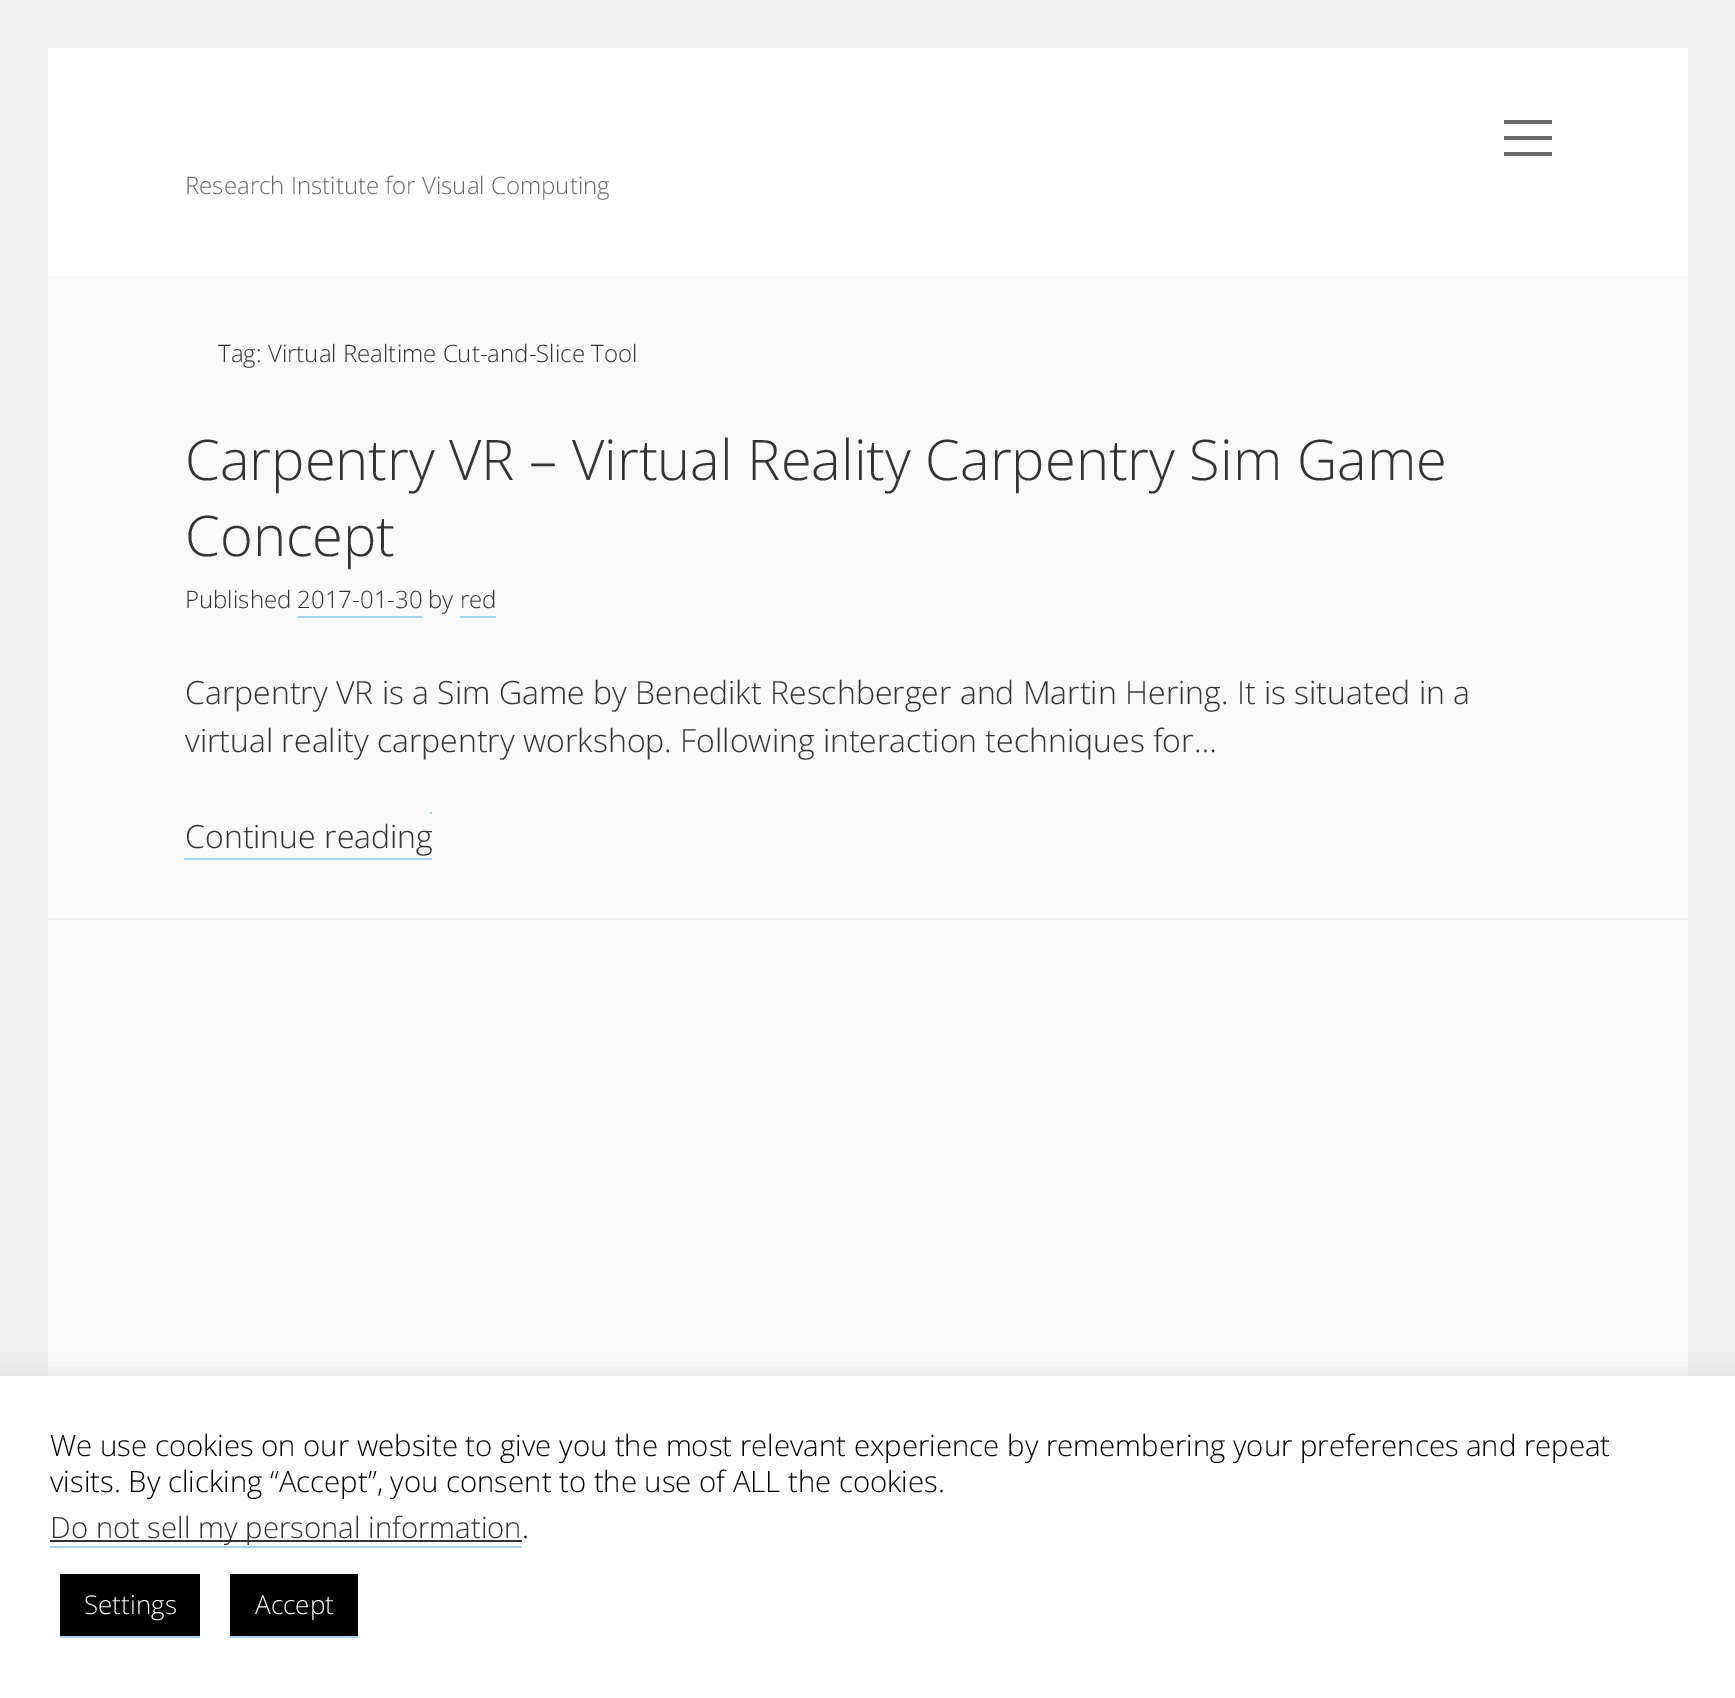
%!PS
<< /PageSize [1735 1698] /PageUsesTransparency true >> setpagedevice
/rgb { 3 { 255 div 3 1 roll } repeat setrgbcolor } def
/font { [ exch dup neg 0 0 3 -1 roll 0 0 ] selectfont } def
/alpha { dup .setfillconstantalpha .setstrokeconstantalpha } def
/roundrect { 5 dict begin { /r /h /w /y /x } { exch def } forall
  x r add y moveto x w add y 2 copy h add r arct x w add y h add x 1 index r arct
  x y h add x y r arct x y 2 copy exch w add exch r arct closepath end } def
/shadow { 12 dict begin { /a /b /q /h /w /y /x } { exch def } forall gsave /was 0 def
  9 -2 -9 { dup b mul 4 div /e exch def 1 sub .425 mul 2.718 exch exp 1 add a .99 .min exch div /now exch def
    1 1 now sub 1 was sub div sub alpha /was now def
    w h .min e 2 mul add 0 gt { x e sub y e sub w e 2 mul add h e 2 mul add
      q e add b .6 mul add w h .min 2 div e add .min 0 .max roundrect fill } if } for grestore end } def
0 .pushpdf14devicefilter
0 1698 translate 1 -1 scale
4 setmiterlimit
240 240 240 rgb
0 0 1735 1698 rectfill
[
  [48 48 1640 228 255 255 255]
  [1504 120 48 4 107 107 107]
  [1504 136 48 4 107 107 107]
  [1504 152 48 4 107 107 107]
  [48 276 1640 1100 250 250 250]
  [298 616 124 2 165 211 237]
  [460 616 36 2 165 211 237]
  [184 858 248 2 165 211 237]
  [430 812 2 2 165 211 237]
  [48 918 1640 2 240 240 240]
] { aload pop rgb rectfill } forall
172 171 171 rgb
0 1374 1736 322 0 10 0.3 shadow
[
  [0 1376 1735 322 255 255 255]
  [50 1546 472 2 165 211 237]
  [50 1540 472 2 51 51 51]
  [60 1574 140 62 0 0 0]
  [60 1636 140 2 165 211 237]
  [230 1574 128 62 0 0 0]
  [230 1636 128 2 165 211 237]
] { aload pop rgb rectfill } forall
/OpenSans-Light 24 font
102 102 102 rgb
185 194 moveto (Research Institute for Visual Computing) show
51 51 51 rgb
218 362 moveto (Tag: Virtual Realtime Cut-and-Slice Tool) show
/OpenSans-Light 56 font
185 480 moveto (Carpentry VR – Virtual Reality Carpentry Sim Game) show
185 556 moveto (Concept) show
/OpenSans-Light 24 font
185 608 moveto (Published 2017-01-30) show
428 608 moveto (by red) show
/OpenSans-Light 32 font
[
  [(Carpentry VR is a Sim Game by Benedikt Reschberger and Martin Hering. It is situated in a) 185 704]
  [(virtual reality carpentry workshop. Following interaction techniques for…) 185 752]
  [(Continue reading) 185 848]
] { aload pop moveto show } forall
/OpenSans-Light 29.33 font
0 0 0 rgb
50 1456 moveto (We use cookies on our website to give you the most relevant experience by remembering your preferences and repeat) show
50 1492 moveto (visits. By clicking “Accept”, you consent to the use of ALL the cookies.) show
51 51 51 rgb
50 1538 moveto (Do not sell my personal information) show
0 0 0 rgb
522 1538 moveto (.) show
/OpenSans-Light 26 font
255 255 255 rgb
84 1614 moveto (Settings) show
255 1614 moveto (Accept) show
.poppdf14devicefilter showpage
